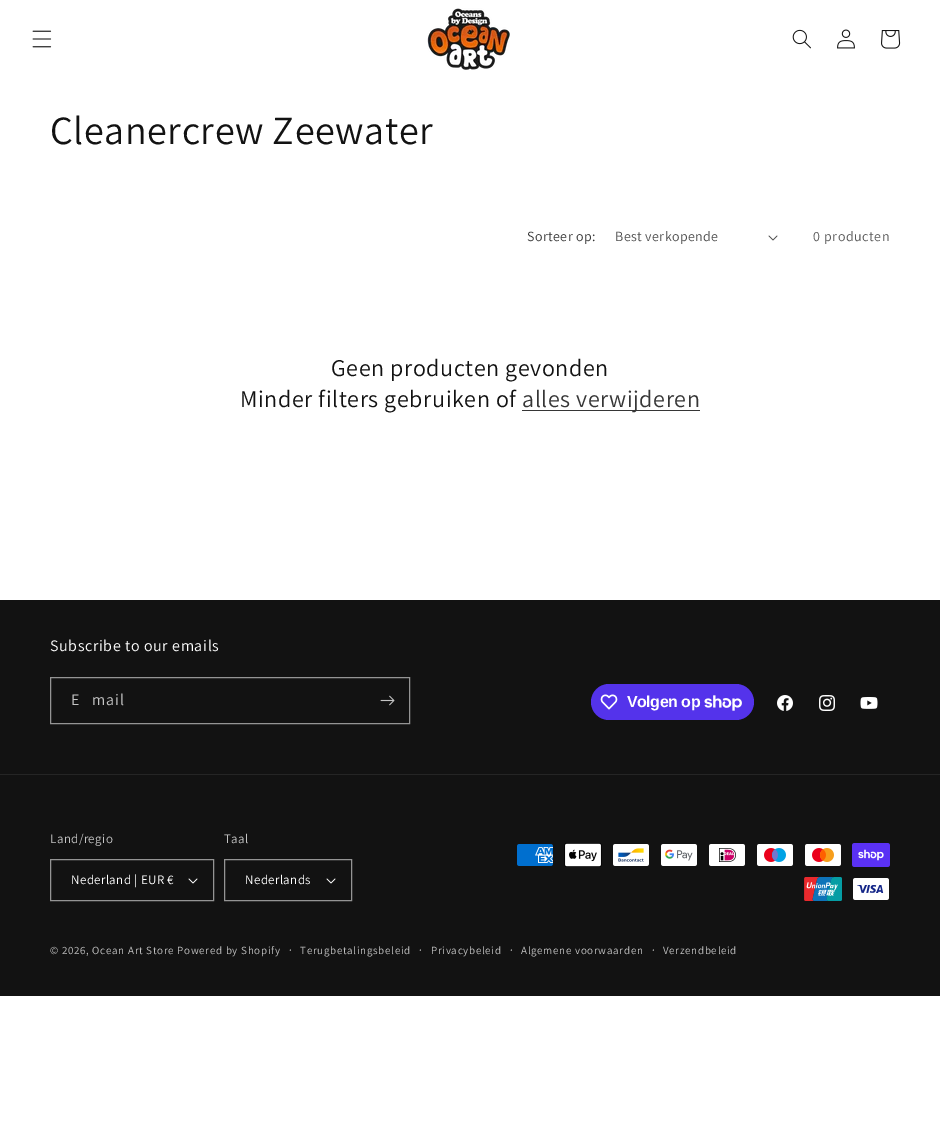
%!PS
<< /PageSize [940 1137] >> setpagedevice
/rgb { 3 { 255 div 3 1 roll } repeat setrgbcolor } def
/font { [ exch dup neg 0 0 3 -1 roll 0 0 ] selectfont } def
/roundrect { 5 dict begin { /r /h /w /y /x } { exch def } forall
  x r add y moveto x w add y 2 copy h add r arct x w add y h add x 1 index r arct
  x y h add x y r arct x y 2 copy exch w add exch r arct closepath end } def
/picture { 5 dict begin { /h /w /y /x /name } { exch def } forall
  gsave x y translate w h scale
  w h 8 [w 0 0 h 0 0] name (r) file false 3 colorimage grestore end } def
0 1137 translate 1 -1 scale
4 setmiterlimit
255 255 255 rgb
0 0 940 1137 rectfill
(img/1.rgb) 32 30 20 18 picture
(img/2.rgb) 427 8 83 62 picture
(img/3.rgb) 792 29 19 20 picture
(img/4.rgb) 837 29 18 20 picture
(img/5.rgb) 881 30 20 19 picture
(img/6.rgb) 768 235 10 6 picture
54 54 54 rgb
522 410 178 1 rectfill
18 18 18 rgb
0 600 940 396 rectfill
148 148 148 rgb
50.5 677.5 359 46 rectstroke
(img/7.rgb) 380 695 15 11 picture
84 51 235 rgb
591 684 163 36 18 roundrect fill
(img/8.rgb) 600 694 18 16 picture
(img/9.rgb) 704 695 38 16 picture
(img/10.rgb) 777 695 16 16 picture
(img/11.rgb) 819 695 16 16 picture
(img/12.rgb) 860 697 18 12 picture
37 37 37 rgb
0 774 940 1 rectfill
(img/13.rgb) 188 878 10 6 picture
148 148 148 rgb
50.5 859.5 163 41 rectstroke
(img/13.rgb) 326 878 10 6 picture
224.5 859.5 127 41 rectstroke
(img/14.rgb) 517 844 36 22 picture
(img/15.rgb) 564 843 38 24 picture
(img/16.rgb) 613 844 36 22 picture
(img/17.rgb) 661 844 36 22 picture
(img/18.rgb) 709 844 36 22 picture
(img/19.rgb) 757 844 36 22 picture
(img/20.rgb) 805 844 36 22 picture
(img/21.rgb) 852 843 38 24 picture
(img/22.rgb) 804 877 38 24 picture
(img/23.rgb) 853 878 36 22 picture
/Assistant-Regular 40 font
18 18 18 rgb
50 144 moveto 0.6 0 (Cleanercrew Zeewater) ashow
/Assistant-Regular 14 font
54 54 54 rgb
527 241 moveto 0.4 0 (Sorteer op:) ashow
77 77 77 rgb
615 241 moveto 0.4 0 (Best verkopende) ashow
89 89 89 rgb
813 241 moveto 0.6 0 (0 producten) ashow
/Assistant-Regular 24 font
18 18 18 rgb
331 376 moveto 0.6 0 (Geen producten gevonden) ashow
240 407 moveto 0.6 0 (Minder filters gebruiken of) ashow
54 54 54 rgb
522 407 moveto 0.6 0 (alles verwijderen) ashow
/Assistant-Regular 16 font
255 255 255 rgb
50 651 moveto 0.6 0 (Subscribe to our emails) ashow
196 196 196 rgb
71 705 moveto 1 0 (E‑mail) ashow
/LiberationSans-Bold 16 font
255 255 255 rgb
627 707 moveto -0.5 0 (Volgen op) ashow
/Assistant-Regular 13 font
196 196 196 rgb
50 843 moveto 0.4 0 (Land/regio) ashow
255 255 255 rgb
71 884 moveto 0.4 0 (Nederland | EUR €) ashow
196 196 196 rgb
224 843 moveto 0.4 0 (Taal) ashow
255 255 255 rgb
245 884 moveto 0.4 0 (Nederlands) ashow
/Assistant-Regular 11 font
196 196 196 rgb
50 954 moveto 0.7 0 (© 2026, Ocean Art Store Powered by Shopify) ashow
/Assistant-Regular 12 font
289 954 moveto 0.7 0 (·) ashow
/Assistant-Regular 11 font
300 954 moveto 0.7 0 (Terugbetalingsbeleid) ashow
/Assistant-Regular 12 font
419 954 moveto 0.7 0 (·) ashow
/Assistant-Regular 11 font
431 954 moveto 0.7 0 (Privacybeleid) ashow
/Assistant-Regular 12 font
510 954 moveto 0.7 0 (·) ashow
/Assistant-Regular 11 font
521 954 moveto 0.7 0 (Algemene voorwaarden) ashow
/Assistant-Regular 12 font
652 954 moveto 0.7 0 (·) ashow
/Assistant-Regular 11 font
663 954 moveto 0.7 0 (Verzendbeleid) ashow
showpage
